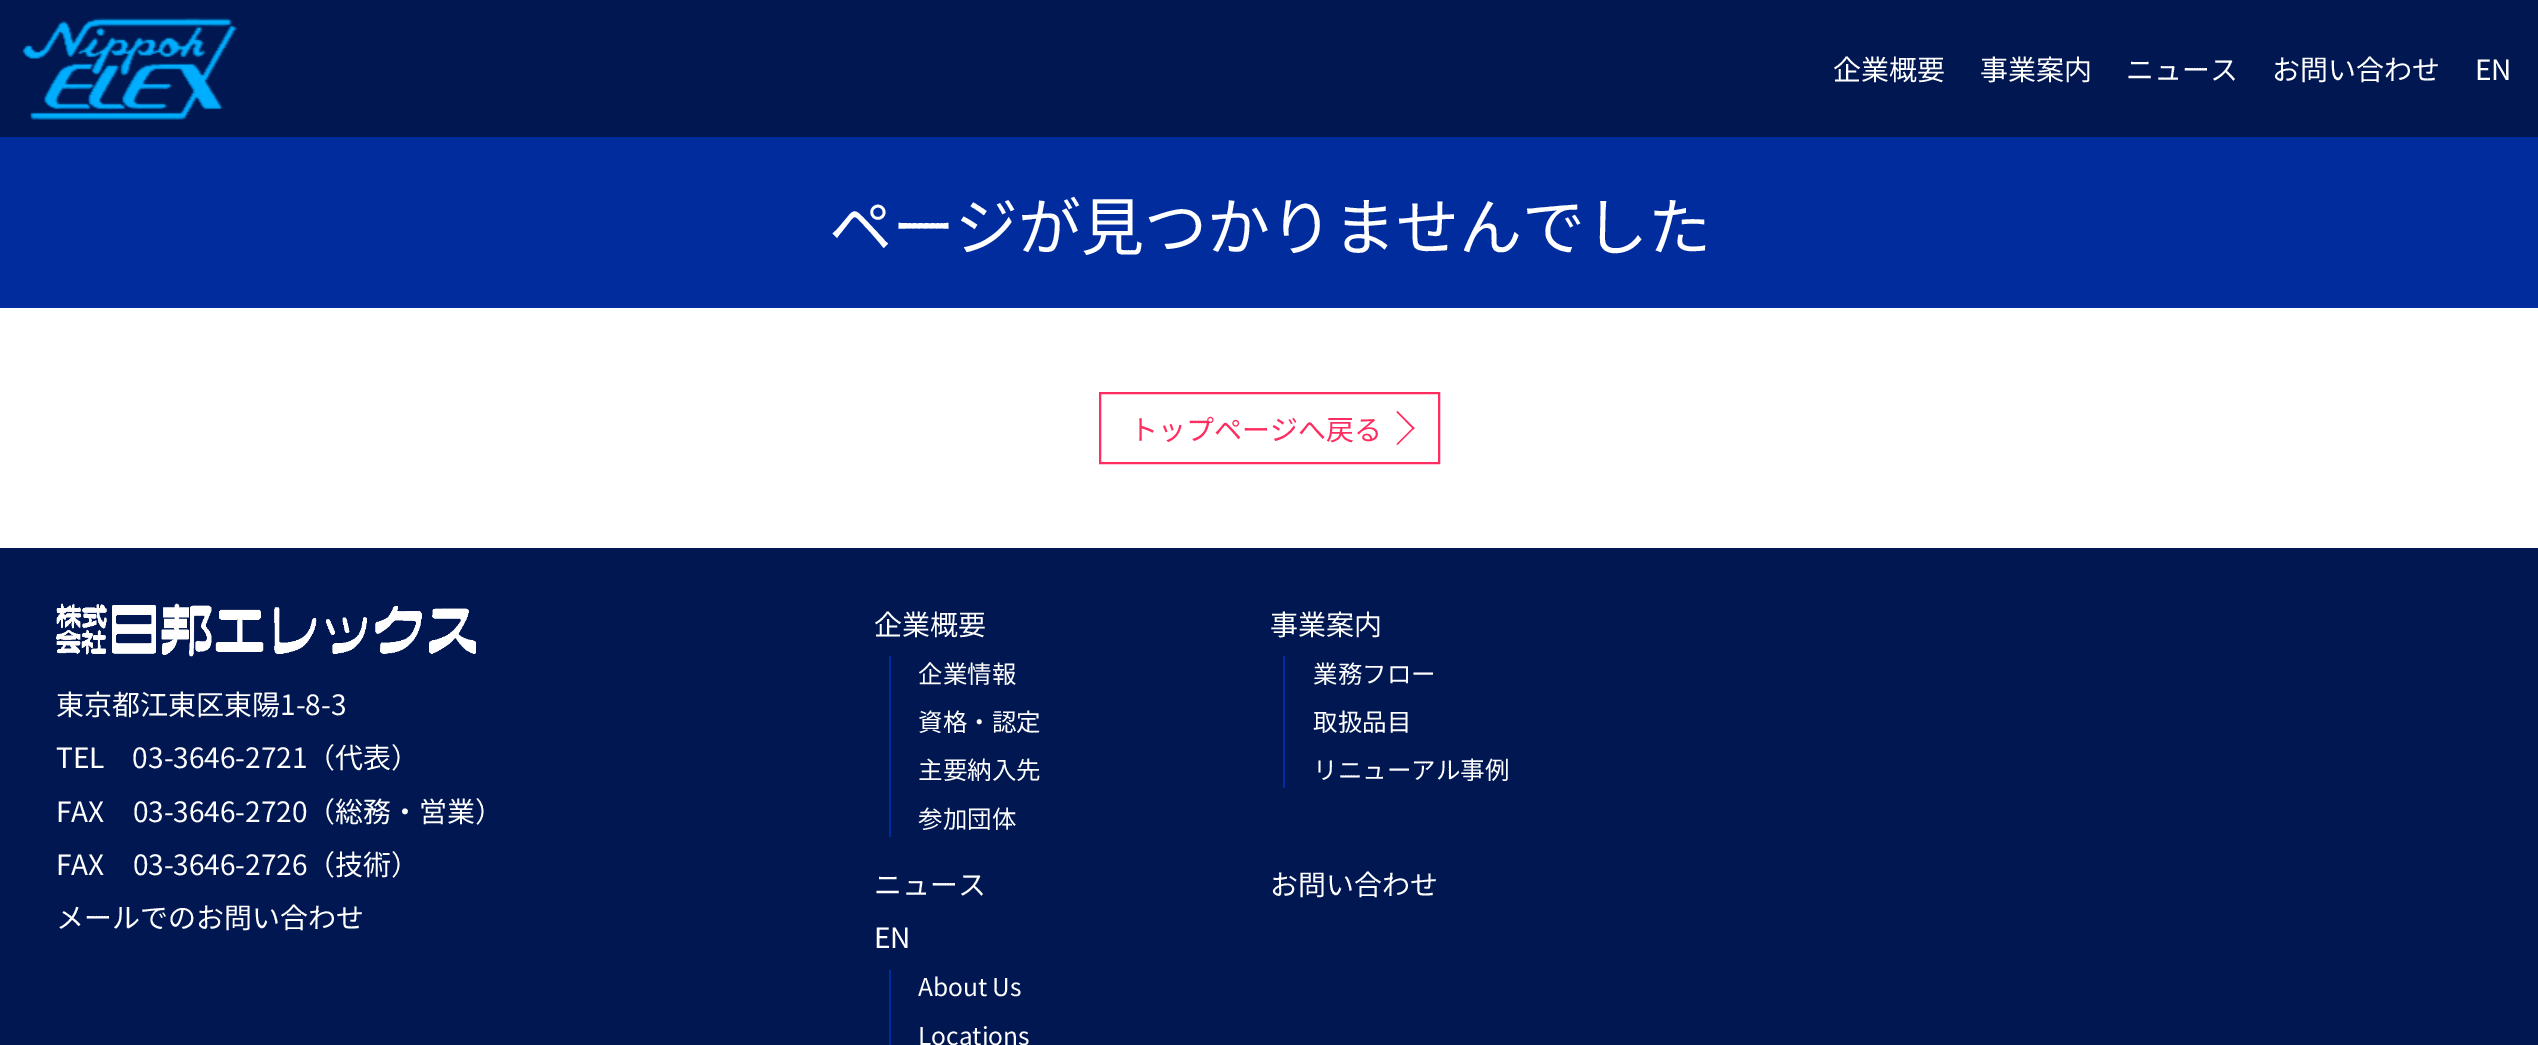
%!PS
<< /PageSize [2538 1045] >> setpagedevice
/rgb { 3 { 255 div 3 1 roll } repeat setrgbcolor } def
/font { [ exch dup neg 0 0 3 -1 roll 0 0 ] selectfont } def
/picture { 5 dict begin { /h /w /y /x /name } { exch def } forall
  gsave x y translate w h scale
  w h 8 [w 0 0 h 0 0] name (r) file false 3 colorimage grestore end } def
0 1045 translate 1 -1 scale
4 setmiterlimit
255 255 255 rgb
0 0 2538 1045 rectfill
0 23 81 rgb
0 0 2538 137 rectfill
(img/1.rgb) 21 17 217 103 picture
0 44 158 rgb
0 137 2538 171 rectfill
255 45 95 rgb
2 setlinewidth
1100 393 339 70 rectstroke
1397.5 411 moveto 1414.5 428 lineto 1413.5 429.5 lineto 1396.5 412 lineto closepath fill
1413.5 427 moveto 1414.5 428 lineto 1397.5 445 lineto 1396.5 444 lineto closepath fill
0 23 81 rgb
0 548 2538 497 rectfill
(img/2.rgb) 56 603 420 54 picture
[
  [889 656 2 181 0 44 158]
  [1283 656 2 132 0 44 158]
  [889 970 2 75 0 44 158]
] { aload pop rgb rectfill } forall
/NotoSansJP-Regular 28 font
255 255 255 rgb
[
  [(企業概要) 1833 80]
  [(事業案内) 1980 80]
  [(ニュース) 2126 80]
  [(お問い合わせ) 2272 80]
  [(EN) 2475 80]
] { aload pop moveto show } forall
/NotoSansJP-Regular 63 font
829 250 moveto (ページが見つかりませんでした) show
/NotoSansJP-Regular 28 font
255 45 95 rgb
1130 440 moveto (トップページへ戻る) show
255 255 255 rgb
[
  [(東京都江東区東陽1-8-3) 56 715]
  [(TEL　03-3646-2721（代表）) 56 768]
  [(FAX　03-3646-2720（総務・営業）) 56 822]
  [(FAX　03-3646-2726（技術）) 56 875]
  [(メールでのお問い合わせ) 56 928]
  [(企業概要) 874 635]
] { aload pop moveto show } forall
/NotoSansJP-Regular 24.5 font
[
  [(企業情報) 918 683]
  [(資格・認定) 918 731]
  [(主要納入先) 918 779]
  [(参加団体) 918 828]
] { aload pop moveto show } forall
/NotoSansJP-Regular 28 font
1270 635 moveto (事業案内) show
/NotoSansJP-Regular 24.5 font
[
  [(業務フロー) 1313 683]
  [(取扱品目) 1313 731]
  [(リニューアル事例) 1313 779]
] { aload pop moveto show } forall
/NotoSansJP-Regular 28 font
[
  [(ニュース) 874 895]
  [(お問い合わせ) 1270 895]
  [(EN) 874 948]
] { aload pop moveto show } forall
/NotoSansJP-Regular 24.5 font
918 996 moveto (About Us) show
918 1045 moveto (Locations) show
showpage
